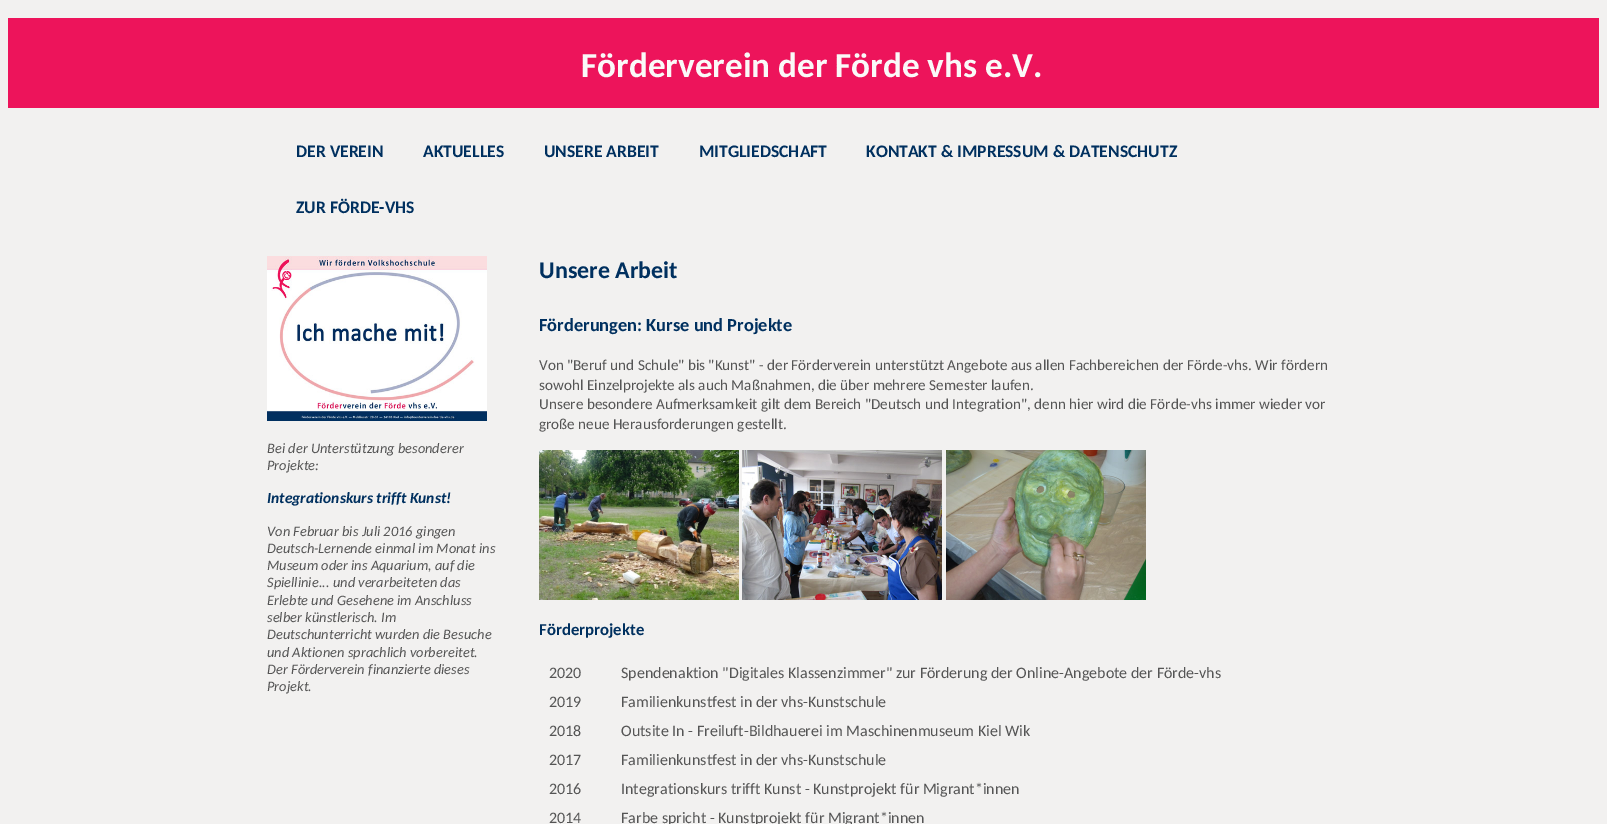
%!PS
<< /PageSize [1607 824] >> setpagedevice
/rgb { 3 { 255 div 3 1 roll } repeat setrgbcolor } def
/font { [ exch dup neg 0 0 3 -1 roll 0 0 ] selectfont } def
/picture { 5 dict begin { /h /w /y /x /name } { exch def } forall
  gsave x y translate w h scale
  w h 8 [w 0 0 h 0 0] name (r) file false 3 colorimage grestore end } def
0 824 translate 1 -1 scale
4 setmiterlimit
242 241 240 rgb
0 0 1607 824 rectfill
237 20 91 rgb
8 18 1591 90 rectfill
(img/1.rgb) 267 256 220 165 picture
(img/2.rgb) 539 450 200 150 picture
(img/3.rgb) 742 450 200 150 picture
(img/4.rgb) 946 450 200 150 picture
/Carlito-Bold 35.25 font
250 249 248 rgb
581 77 moveto (Förderverein der Förde vhs e.V.) show
/Carlito-Bold 17.6 font
0 48 95 rgb
[
  [(DER VEREIN) 296 157]
  [(AKTUELLES) 423 157]
  [(UNSERE ARBEIT) 544 157]
  [(MITGLIEDSCHAFT) 699 157]
  [(KONTAKT & IMPRESSUM & DATENSCHUTZ) 866 157]
  [(ZUR FÖRDE-VHS) 296 213]
] { aload pop moveto show } forall
/Carlito-Italic 14.4 font
85 85 85 rgb
267 453 moveto (Bei der Unterstützung besonderer) show
267 470 moveto (Projekte:) show
/Carlito-BoldItalic 15.5 font
0 48 95 rgb
267 503 moveto (Integrationskurs trifft Kunst!) show
/Carlito-Italic 14.4 font
85 85 85 rgb
[
  [(Von Februar bis Juli 2016 gingen) 267 536]
  [(Deutsch-Lernende einmal im Monat ins) 267 553]
  [(Museum oder ins Aquarium, auf die) 267 570]
  [(Spiellinie... und verarbeiteten das) 267 587]
  [(Erlebte und Gesehene im Anschluss) 267 605]
  [(selber künstlerisch. Im) 267 622]
  [(Deutschunterricht wurden die Besuche) 267 639]
  [(und Aktionen sprachlich vorbereitet.) 267 657]
  [(Der Förderverein finanzierte dieses) 267 674]
  [(Projekt.) 267 691]
] { aload pop moveto show } forall
/Carlito-Bold 24 font
0 48 95 rgb
539 278 moveto (Unsere Arbeit) show
/Carlito-Bold 18.4 font
539 331 moveto (Förderungen: Kurse und Projekte) show
/Carlito-Regular 15.2 font
85 85 85 rgb
[
  [(Von "Beruf und Schule" bis "Kunst" - der Förderverein unterstützt Angebote aus allen Fachbereichen der Förde-vhs. Wir fördern) 539 370]
  [(sowohl Einzelprojekte als auch Maßnahmen, die über mehrere Semester laufen.) 539 390]
  [(Unsere besondere Aufmerksamkeit gilt dem Bereich "Deutsch und Integration", denn hier wird die Förde-vhs immer wieder vor) 539 409]
  [(große neue Herausforderungen gestellt.) 539 429]
] { aload pop moveto show } forall
/Carlito-Bold 16.75 font
0 48 95 rgb
539 635 moveto (Förderprojekte) show
/Carlito-Regular 16 font
85 85 85 rgb
[
  [(2020) 549 678]
  [(Spendenaktion "Digitales Klassenzimmer" zur Förderung der Online-Angebote der Förde-vhs) 621 678]
  [(2019) 549 707]
  [(Familienkunstfest in der vhs-Kunstschule) 621 707]
  [(2018) 549 736]
  [(Outsite In - Freiluft-Bildhauerei im Maschinenmuseum Kiel Wik) 621 736]
  [(2017) 549 765]
  [(Familienkunstfest in der vhs-Kunstschule) 621 765]
  [(2016) 549 794]
  [(Integrationskurs trifft Kunst - Kunstprojekt für Migrant*innen) 621 794]
  [(2014) 549 823]
  [(Farbe spricht - Kunstprojekt für Migrant*innen) 621 823]
] { aload pop moveto show } forall
showpage
